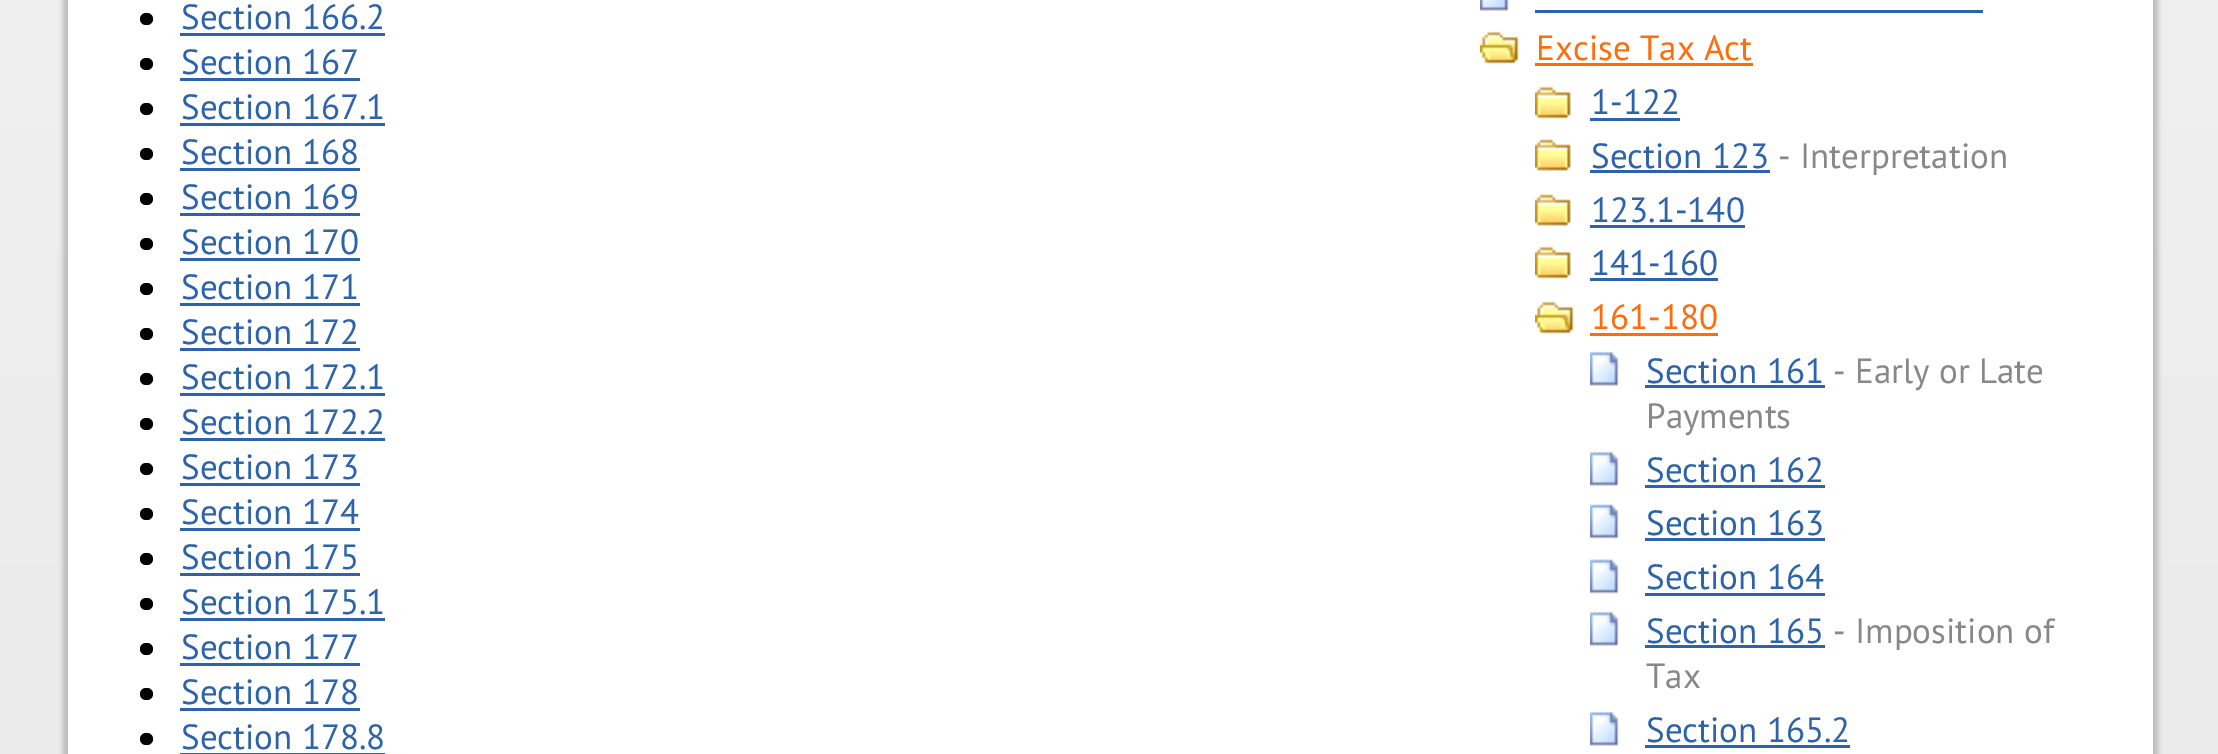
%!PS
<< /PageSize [2218 754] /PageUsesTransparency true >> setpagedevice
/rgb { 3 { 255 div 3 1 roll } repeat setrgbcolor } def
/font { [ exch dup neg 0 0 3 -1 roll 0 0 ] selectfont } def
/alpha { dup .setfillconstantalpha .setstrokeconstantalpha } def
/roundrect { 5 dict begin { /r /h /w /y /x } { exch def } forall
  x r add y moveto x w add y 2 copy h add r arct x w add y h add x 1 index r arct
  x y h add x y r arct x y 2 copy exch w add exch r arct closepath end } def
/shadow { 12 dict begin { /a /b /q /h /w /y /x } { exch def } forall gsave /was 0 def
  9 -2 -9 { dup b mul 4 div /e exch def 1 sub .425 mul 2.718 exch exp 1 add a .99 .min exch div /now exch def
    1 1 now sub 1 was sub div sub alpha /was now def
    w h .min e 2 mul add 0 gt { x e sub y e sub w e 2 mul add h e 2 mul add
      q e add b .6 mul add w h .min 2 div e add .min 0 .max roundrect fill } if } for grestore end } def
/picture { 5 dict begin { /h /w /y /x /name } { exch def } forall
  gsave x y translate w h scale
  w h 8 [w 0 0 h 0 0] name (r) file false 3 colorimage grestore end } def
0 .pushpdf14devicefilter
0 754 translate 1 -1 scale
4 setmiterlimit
255 255 255 rgb
0 0 2218 754 rectfill
gsave 0 0 moveto 2218 0 lineto 2218 754 lineto 0 754 lineto closepath clip newpath
<< /ShadingType 2 /ColorSpace /DeviceRGB /Coords [1110 -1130 1110 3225] /Extend [true true] /Function << /FunctionType 2 /Domain [0 1] /C0 [0.965 0.965 0.965] /C1 [0.867 0.867 0.867] /N 1 >> >> shfill grestore
187 187 187 rgb
63 -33 2095 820 25 2.5 1 shadow
255 255 255 rgb
68 0 2085 754 rectfill
0 0 0 rgb
140 13 13 12 6 roundrect fill
44 99 170 rgb
180 33 205 3 rectfill
0 0 0 rgb
140 58 13 12 6 roundrect fill
44 99 170 rgb
180 78 180 3 rectfill
0 0 0 rgb
140 103 13 12 6 roundrect fill
44 99 170 rgb
180 123 205 3 rectfill
0 0 0 rgb
140 148 13 12 6 roundrect fill
44 99 170 rgb
180 168 180 3 rectfill
0 0 0 rgb
140 193 13 12 6 roundrect fill
44 99 170 rgb
180 213 180 3 rectfill
0 0 0 rgb
140 238 13 12 6 roundrect fill
44 99 170 rgb
180 258 180 3 rectfill
0 0 0 rgb
140 283 13 12 6 roundrect fill
44 99 170 rgb
180 303 180 3 rectfill
0 0 0 rgb
140 328 13 12 6 roundrect fill
44 99 170 rgb
180 348 180 3 rectfill
0 0 0 rgb
140 373 13 12 6 roundrect fill
44 99 170 rgb
180 393 205 3 rectfill
0 0 0 rgb
140 418 13 12 6 roundrect fill
44 99 170 rgb
180 438 205 3 rectfill
0 0 0 rgb
140 463 13 12 6 roundrect fill
44 99 170 rgb
180 483 180 3 rectfill
0 0 0 rgb
140 508 13 12 6 roundrect fill
44 99 170 rgb
180 528 180 3 rectfill
0 0 0 rgb
140 553 13 12 6 roundrect fill
44 99 170 rgb
180 573 180 3 rectfill
0 0 0 rgb
140 598 13 12 6 roundrect fill
44 99 170 rgb
180 618 205 3 rectfill
0 0 0 rgb
140 643 13 12 6 roundrect fill
44 99 170 rgb
180 663 180 3 rectfill
0 0 0 rgb
140 688 13 12 6 roundrect fill
44 99 170 rgb
180 708 180 3 rectfill
0 0 0 rgb
140 733 13 12 6 roundrect fill
44 99 170 rgb
180 753 205 1 rectfill
(img/1.rgb) 1480 0 29 11 picture
1535 10 448 3 rectfill
(img/2.rgb) 1480 31 39 33 picture
255 108 10 rgb
1535 63 218 3 rectfill
(img/3.rgb) 1535 86 36 33 picture
44 99 170 rgb
1590 118 90 3 rectfill
(img/4.rgb) 1535 139 36 32 picture
1590 170 180 3 rectfill
(img/4.rgb) 1535 194 36 32 picture
1590 225 155 3 rectfill
(img/3.rgb) 1535 246 36 33 picture
1590 278 128 3 rectfill
(img/5.rgb) 1535 301 39 33 picture
255 108 10 rgb
1590 333 128 3 rectfill
(img/6.rgb) 1590 351 29 35 picture
44 99 170 rgb
1645 385 180 3 rectfill
(img/6.rgb) 1590 451 29 35 picture
1645 485 180 3 rectfill
(img/7.rgb) 1590 504 29 35 picture
1645 538 180 3 rectfill
(img/7.rgb) 1590 559 29 35 picture
1645 593 180 3 rectfill
(img/6.rgb) 1590 611 29 35 picture
1645 645 180 3 rectfill
(img/8.rgb) 1590 711 29 35 picture
1645 745 205 3 rectfill
/PTSans-Regular 35 font
[
  [(Section 166.2) 181 29]
  [(Section 167) 181 74]
  [(Section 167.1) 181 119]
  [(Section 168) 181 164]
  [(Section 169) 181 209]
  [(Section 170) 181 254]
  [(Section 171) 181 299]
  [(Section 172) 181 344]
  [(Section 172.1) 181 389]
  [(Section 172.2) 181 434]
  [(Section 173) 181 479]
  [(Section 174) 181 524]
  [(Section 175) 181 569]
  [(Section 175.1) 181 614]
  [(Section 177) 181 659]
  [(Section 178) 181 704]
  [(Section 178.8) 181 749]
] { aload pop moveto show } forall
255 108 10 rgb
1536 60 moveto (Excise Tax Act) show
44 99 170 rgb
1591 114 moveto (1-122) show
1591 168 moveto (Section 123) show
136 136 136 rgb
1778 168 moveto (- Interpretation) show
44 99 170 rgb
1591 222 moveto (123.1-140) show
1591 275 moveto (141-160) show
255 108 10 rgb
1591 329 moveto (161-180) show
44 99 170 rgb
1646 383 moveto (Section 161) show
136 136 136 rgb
1833 383 moveto (- Early or Late) show
1646 428 moveto (Payments) show
44 99 170 rgb
[
  [(Section 162) 1646 482]
  [(Section 163) 1646 535]
  [(Section 164) 1646 589]
  [(Section 165) 1646 643]
] { aload pop moveto show } forall
136 136 136 rgb
1833 643 moveto (- Imposition of) show
1646 688 moveto (Tax) show
44 99 170 rgb
1646 742 moveto (Section 165.2) show
.poppdf14devicefilter showpage
